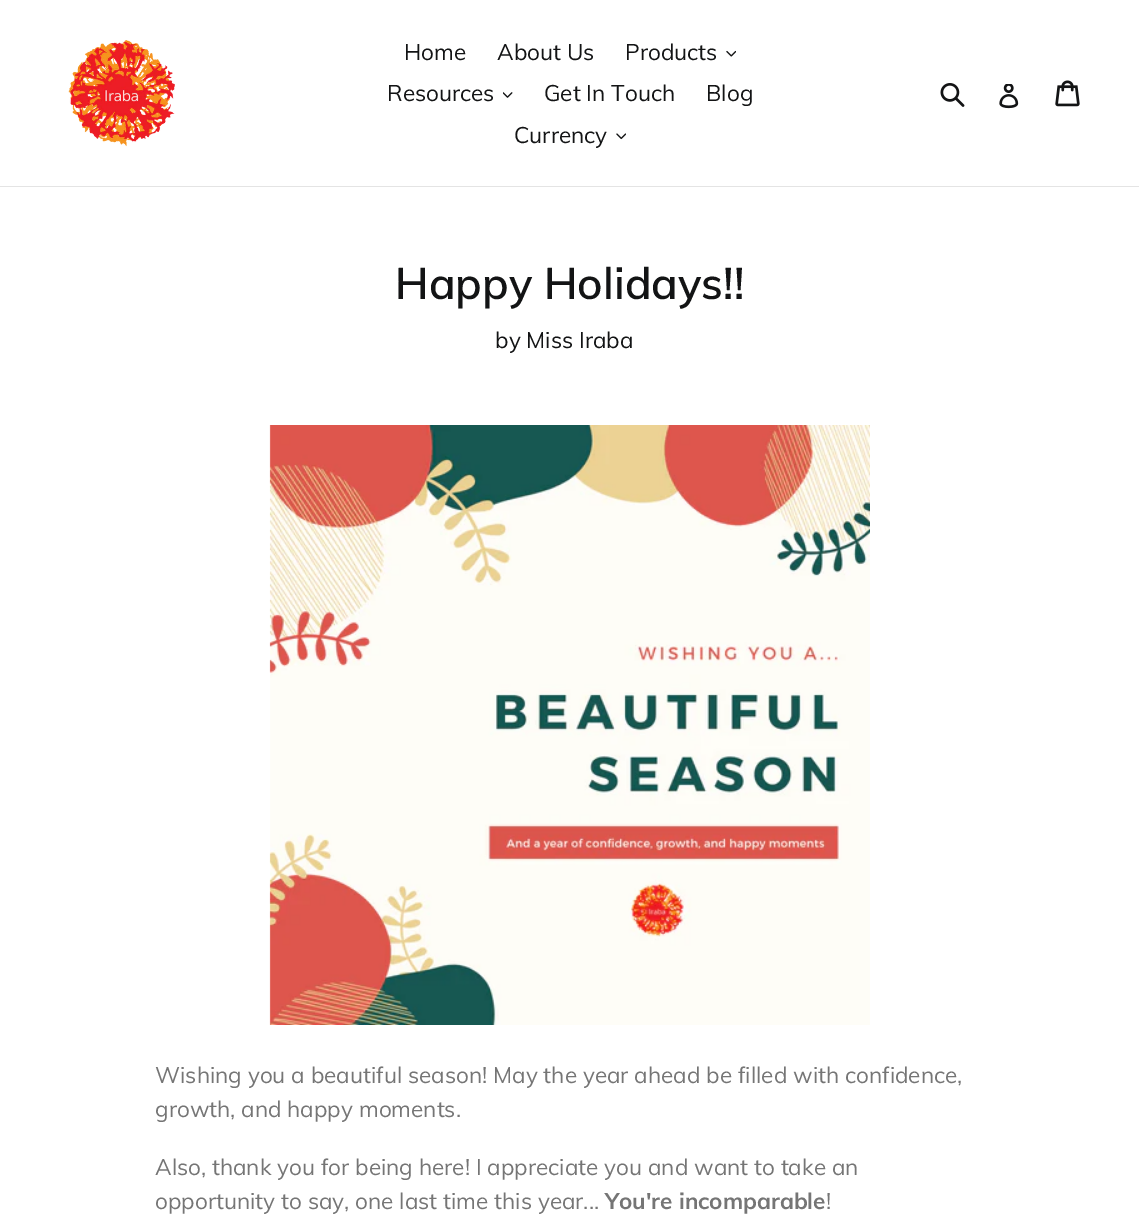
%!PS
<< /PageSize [1139 1217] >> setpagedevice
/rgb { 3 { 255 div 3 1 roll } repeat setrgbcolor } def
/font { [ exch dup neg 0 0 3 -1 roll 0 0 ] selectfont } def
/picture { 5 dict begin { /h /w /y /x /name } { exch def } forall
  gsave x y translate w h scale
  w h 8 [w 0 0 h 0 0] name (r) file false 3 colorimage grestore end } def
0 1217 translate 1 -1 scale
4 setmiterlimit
255 255 255 rgb
0 0 1139 1217 rectfill
228 228 228 rgb
0 186 1139 1 rectfill
(img/1.rgb) 68 40 107 107 picture
(img/2.rgb) 726 50 10 7 picture
(img/3.rgb) 503 92 10 6 picture
(img/4.rgb) 616 133 10 7 picture
(img/5.rgb) 940 83 25 24 picture
(img/6.rgb) 999 84 20 25 picture
(img/7.rgb) 1055 80 25 27 picture
(img/8.rgb) 269 425 601 600 picture
/Muli-Regular 22.5 font
19 20 21 rgb
[
  [(Home) 404 60]
  [(About Us) 497 60]
  [(Products) 625 60]
  [(Resources) 387 101]
  [(Get In Touch) 544 101]
  [(Blog) 706 101]
  [(Currency) 514 143]
] { aload pop moveto show } forall
/Muli-SemiBold 43.75 font
395 299 moveto (Happy Holidays!!) show
/Muli-Regular 22.5 font
495 348 moveto (by Miss Iraba) show
117 117 117 rgb
[
  [(Wishing you a beautiful season! May the year ahead be filled with confidence,) 155 1083]
  [(growth, and happy moments.) 155 1117]
  [(Also, thank you for being here! I appreciate you and want to take an) 155 1175]
  [(opportunity to say, one last time this year...) 155 1209]
] { aload pop moveto show } forall
/Muli-Bold 22.5 font
605 1209 moveto (You're incomparable) show
/Muli-Regular 22.5 font
826 1209 moveto (!) show
showpage
